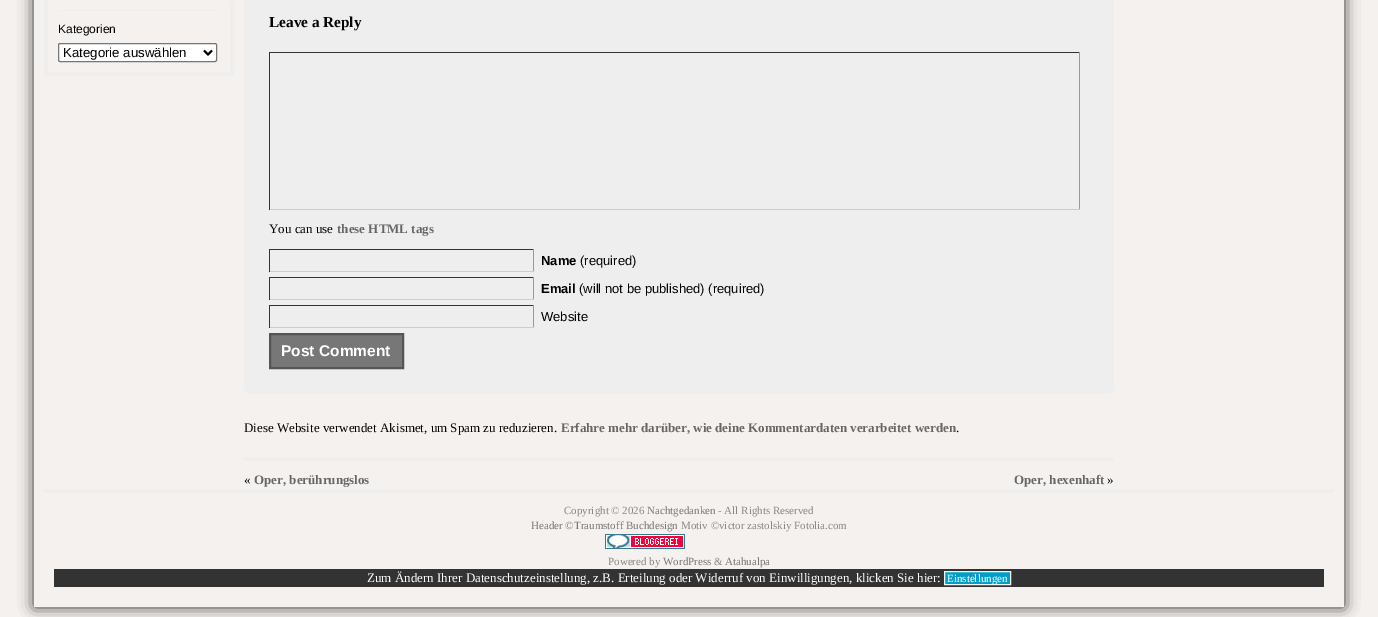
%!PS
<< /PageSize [1378 617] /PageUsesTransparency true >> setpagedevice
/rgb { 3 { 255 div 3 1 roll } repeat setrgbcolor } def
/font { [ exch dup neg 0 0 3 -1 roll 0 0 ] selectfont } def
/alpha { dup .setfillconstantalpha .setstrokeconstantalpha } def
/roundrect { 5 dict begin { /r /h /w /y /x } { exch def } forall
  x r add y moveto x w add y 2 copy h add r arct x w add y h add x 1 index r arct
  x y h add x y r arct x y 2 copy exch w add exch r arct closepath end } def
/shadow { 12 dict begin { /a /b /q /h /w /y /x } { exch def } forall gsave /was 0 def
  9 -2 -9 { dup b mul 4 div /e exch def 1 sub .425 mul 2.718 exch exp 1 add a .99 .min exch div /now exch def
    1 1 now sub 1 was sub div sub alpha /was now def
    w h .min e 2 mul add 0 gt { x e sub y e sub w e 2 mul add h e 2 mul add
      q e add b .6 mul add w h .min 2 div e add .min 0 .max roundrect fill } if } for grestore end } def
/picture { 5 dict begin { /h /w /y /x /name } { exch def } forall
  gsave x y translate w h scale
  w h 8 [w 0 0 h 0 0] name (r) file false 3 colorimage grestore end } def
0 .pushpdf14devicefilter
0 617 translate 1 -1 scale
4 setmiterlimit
245 241 238 rgb
0 0 1378 617 rectfill
gsave
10 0 moveto 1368 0 lineto 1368 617 lineto 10 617 lineto closepath 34 -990 moveto 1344 -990 lineto 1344 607 lineto 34 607 lineto closepath eoclip newpath
51 51 51 rgb
34 -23 1310 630 0 7.5 1 shadow
grestore
238 238 238 rgb
4 setlinewidth
46 -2 186 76 rectstroke
58 10 162 1 rectfill
255 255 255 rgb
58.5 43.5 158 18 1.5 roundrect gsave fill grestore
118 118 118 rgb
1 setlinewidth
stroke
0 0 0 rgb
2 setlinewidth
204 50.5 moveto 208 54.5 lineto 212 50.5 lineto stroke
238 238 238 rgb
244 -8 870 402 8 roundrect fill
[
  [269 52 811 1 51 51 51]
  [1079 52 1 158 153 153 153]
  [269 209 811 1 204 204 204]
  [269 52 1 158 51 51 51]
  [269 249 265 1 51 51 51]
  [533 249 1 23 153 153 153]
  [269 271 265 1 204 204 204]
  [269 249 1 23 51 51 51]
  [269 277 265 1 51 51 51]
  [533 277 1 23 153 153 153]
  [269 299 265 1 204 204 204]
  [269 277 1 23 51 51 51]
  [269 305 265 1 51 51 51]
  [533 305 1 23 153 153 153]
  [269 327 265 1 204 204 204]
  [269 305 1 23 51 51 51]
] { aload pop rgb rectfill } forall
119 119 119 rgb
270 334 moveto 403 334 lineto 403 368 lineto 270 368 lineto closepath gsave fill grestore
85 85 85 rgb
stroke
238 238 238 rgb
244 457 870 4 rectfill
44 489 1290 4 rectfill
(img/1.rgb) 605 534 80 15 picture
51 51 51 rgb
54 569 1270 18 rectfill
0 158 203 rgb
944.5 571.5 moveto 1010.5 571.5 lineto 1010.5 584.5 lineto 944.5 584.5 lineto closepath gsave fill grestore
243 243 243 rgb
1 setlinewidth
stroke
/LiberationSans-Regular 12 font
0 0 0 rgb
58 33 moveto (Kategorien) show
/LiberationSans-Regular 13.25 font
63 57 moveto (Kategorie auswählen) show
/LiberationSerif-Bold 15.25 font
269 27 moveto (Leave a Reply) show
/LiberationSerif-Regular 13 font
269 233 moveto (You can use) show
/LiberationSerif-Bold 13 font
102 102 102 rgb
337 233 moveto (these HTML tags) show
/LiberationSans-Bold 13 font
0 0 0 rgb
541 265 moveto (Name) show
/LiberationSans-Regular 13 font
580 265 moveto (\(required\)) show
/LiberationSans-Bold 13 font
541 293 moveto (Email) show
/LiberationSans-Regular 13 font
579 293 moveto (\(will not be published\) \(required\)) show
541 321 moveto (Website) show
/LiberationSans-Bold 15.5 font
255 255 255 rgb
281 356 moveto (Post Comment) show
/LiberationSerif-Regular 13 font
0 0 0 rgb
244 432 moveto (Diese Website verwendet Akismet, um Spam zu reduzieren.) show
/LiberationSerif-Bold 13 font
102 102 102 rgb
561 432 moveto (Erfahre mehr darüber, wie deine Kommentardaten verarbeitet werden) show
/LiberationSerif-Regular 13 font
0 0 0 rgb
956 432 moveto (.) show
244 484 moveto («) show
/LiberationSerif-Bold 13 font
102 102 102 rgb
254 484 moveto (Oper, berührungslos) show
1014 484 moveto (Oper, hexenhaft) show
/LiberationSerif-Regular 13 font
0 0 0 rgb
1107 484 moveto (») show
/LiberationSerif-Regular 11 font
136 136 136 rgb
564 514 moveto (Copyright © 2026) show
119 119 119 rgb
647 514 moveto (Nachtgedanken) show
136 136 136 rgb
718 514 moveto (- All Rights Reserved) show
119 119 119 rgb
531 529 moveto (Header ©Traumstoff Buchdesign) show
136 136 136 rgb
681 529 moveto (Motiv ©victor zastolskiy Fotolia.com) show
608 565 moveto (Powered by) show
119 119 119 rgb
663 565 moveto (WordPress) show
136 136 136 rgb
714 565 moveto (&) show
119 119 119 rgb
725 565 moveto (Atahualpa) show
/LiberationSerif-Regular 13 font
255 255 255 rgb
367 582 moveto (Zum Ändern Ihrer Datenschutzeinstellung, z.B. Erteilung oder Widerruf von Einwilligungen, klicken Sie hier:) show
/LiberationSerif-Regular 11 font
947 582 moveto (Einstellungen) show
.poppdf14devicefilter showpage
